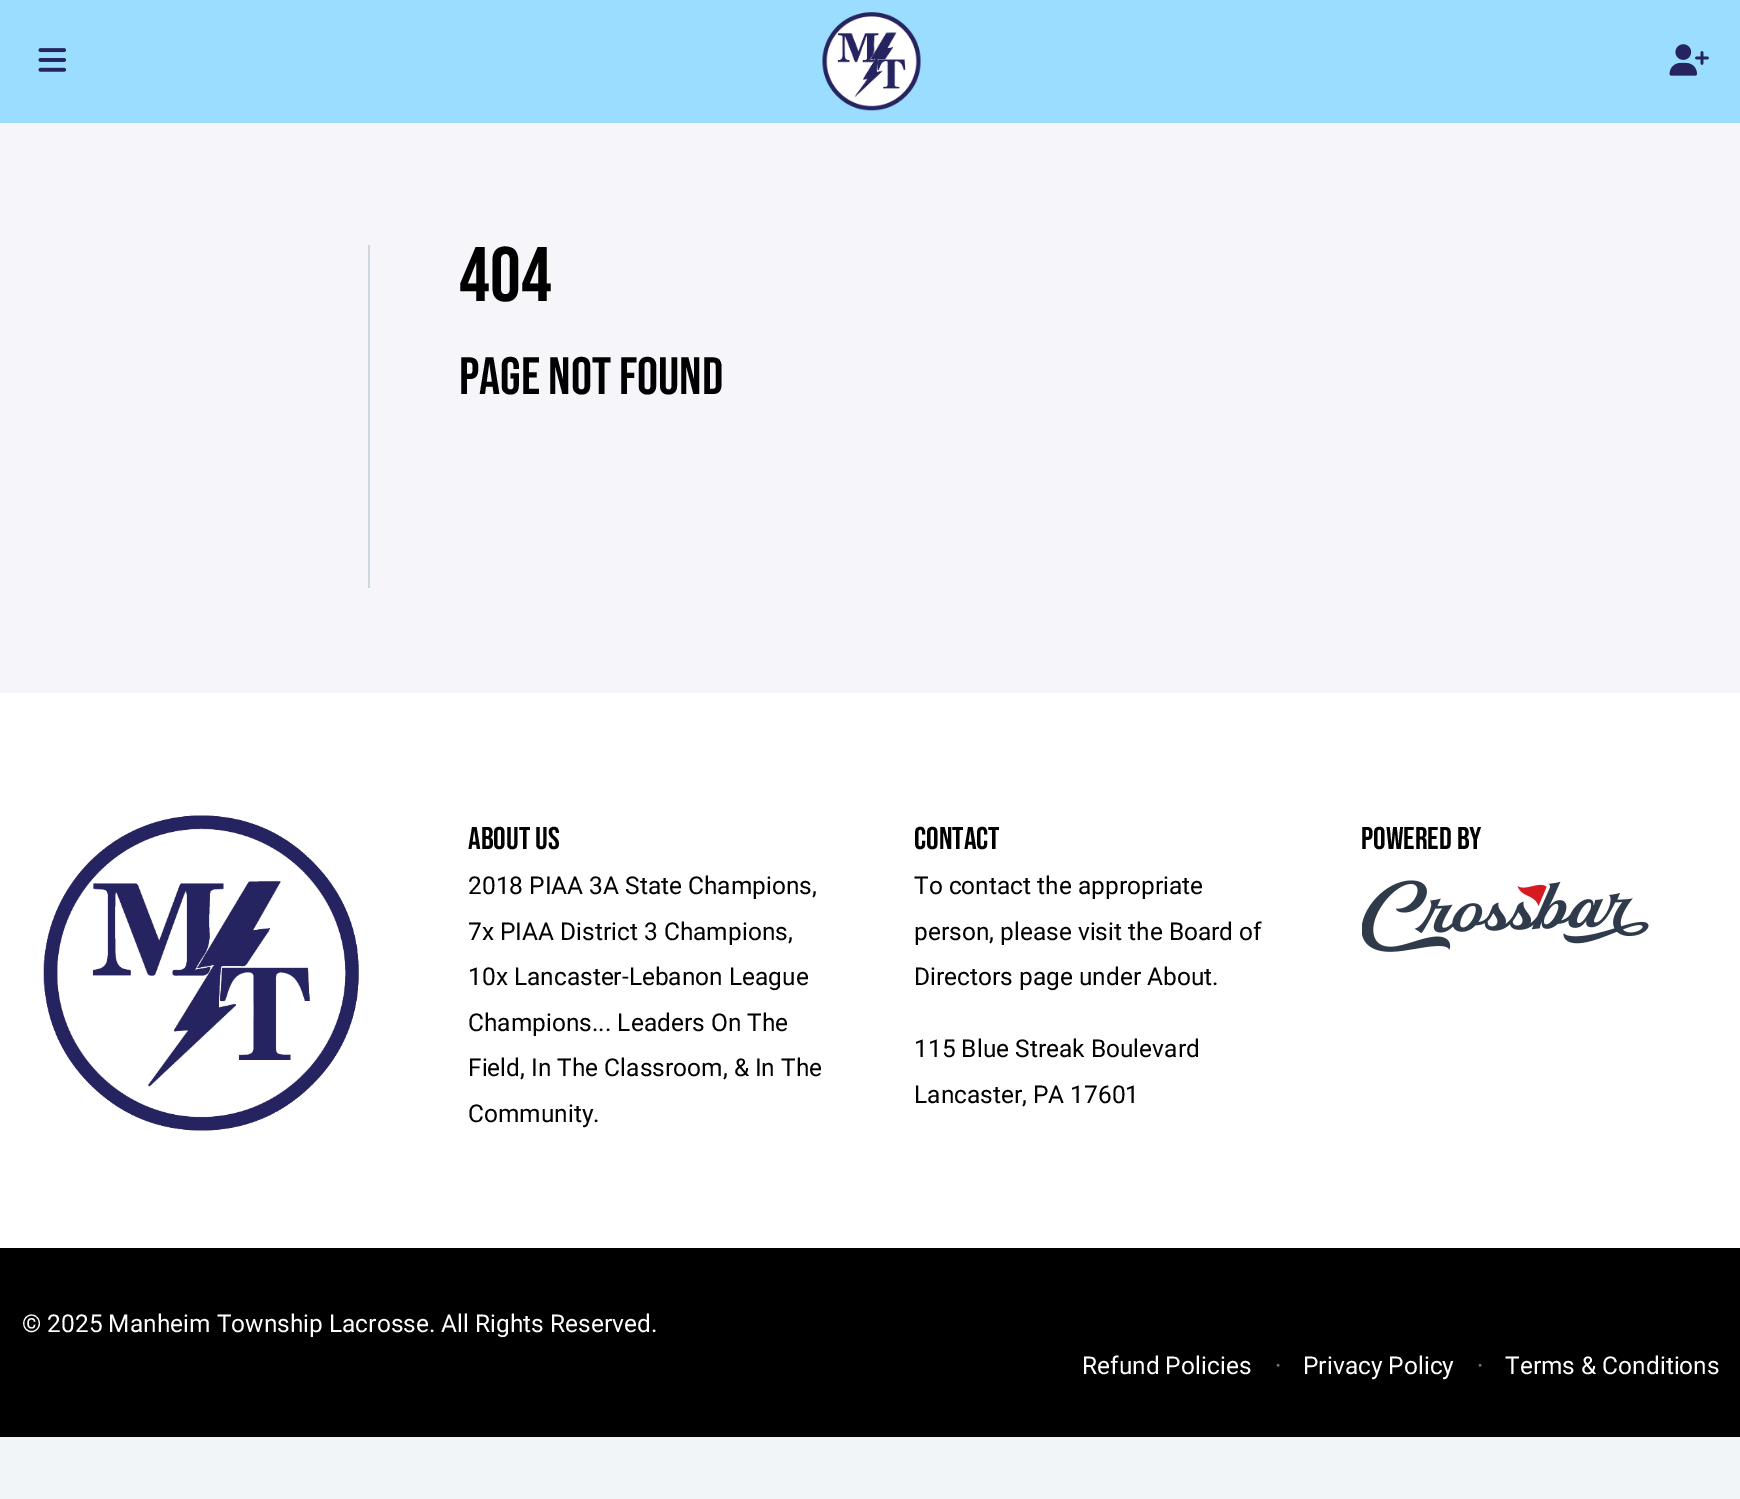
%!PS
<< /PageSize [1740 1499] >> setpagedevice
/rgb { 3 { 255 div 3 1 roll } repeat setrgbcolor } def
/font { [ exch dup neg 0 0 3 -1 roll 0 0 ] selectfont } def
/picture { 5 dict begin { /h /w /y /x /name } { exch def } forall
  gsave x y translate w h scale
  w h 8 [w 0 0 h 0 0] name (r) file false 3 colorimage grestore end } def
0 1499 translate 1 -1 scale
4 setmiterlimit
242 245 247 rgb
0 0 1740 1499 rectfill
155 221 255 rgb
0 0 1740 123 rectfill
(img/1.rgb) 38 48 28 24 picture
(img/2.rgb) 822 12 99 99 picture
(img/3.rgb) 1669 44 40 32 picture
[
  [0 123 1740 570 246 245 250]
  [368 245 2 343 206 215 224]
  [0 693 1740 555 255 255 255]
] { aload pop rgb rectfill } forall
(img/4.rgb) 43 815 316 316 picture
(img/5.rgb) 1362 880 287 72 picture
0 0 0 rgb
0 1248 1740 189 rectfill
/BebasNeue-Regular 77 font
459 301 moveto (404) show
/BebasNeue-Regular 52.5 font
459 394 moveto (PAGE NOT FOUND) show
/BebasNeue-Regular 31.5 font
468 849 moveto (ABOUT US) show
/Roboto-Regular 24.5 font
[
  [(2018 PIAA 3A State Champions,) 468 894]
  [(7x PIAA District 3 Champions,) 468 940]
  [(10x Lancaster-Lebanon League) 468 985]
  [(Champions... Leaders On The) 468 1031]
  [(Field, In The Classroom, & In The) 468 1076]
  [(Community.) 468 1122]
] { aload pop moveto show } forall
/BebasNeue-Regular 31.5 font
914 849 moveto (CONTACT) show
/Roboto-Regular 24.5 font
[
  [(To contact the appropriate) 914 894]
  [(person, please visit the Board of) 914 940]
  [(Directors page under About.) 914 985]
  [(115 Blue Streak Boulevard) 914 1057]
  [(Lancaster, PA 17601) 914 1103]
] { aload pop moveto show } forall
/BebasNeue-Regular 31.5 font
1361 849 moveto (POWERED BY) show
/Roboto-Regular 24.5 font
255 255 255 rgb
22 1332 moveto (© 2025 Manheim Township Lacrosse. All Rights Reserved.) show
1082 1374 moveto (Refund Policies) show
112 126 140 rgb
1275 1374 moveto (·) show
255 255 255 rgb
1303 1374 moveto (Privacy Policy) show
112 126 140 rgb
1477 1374 moveto (·) show
255 255 255 rgb
1505 1374 moveto (Terms & Conditions) show
showpage
